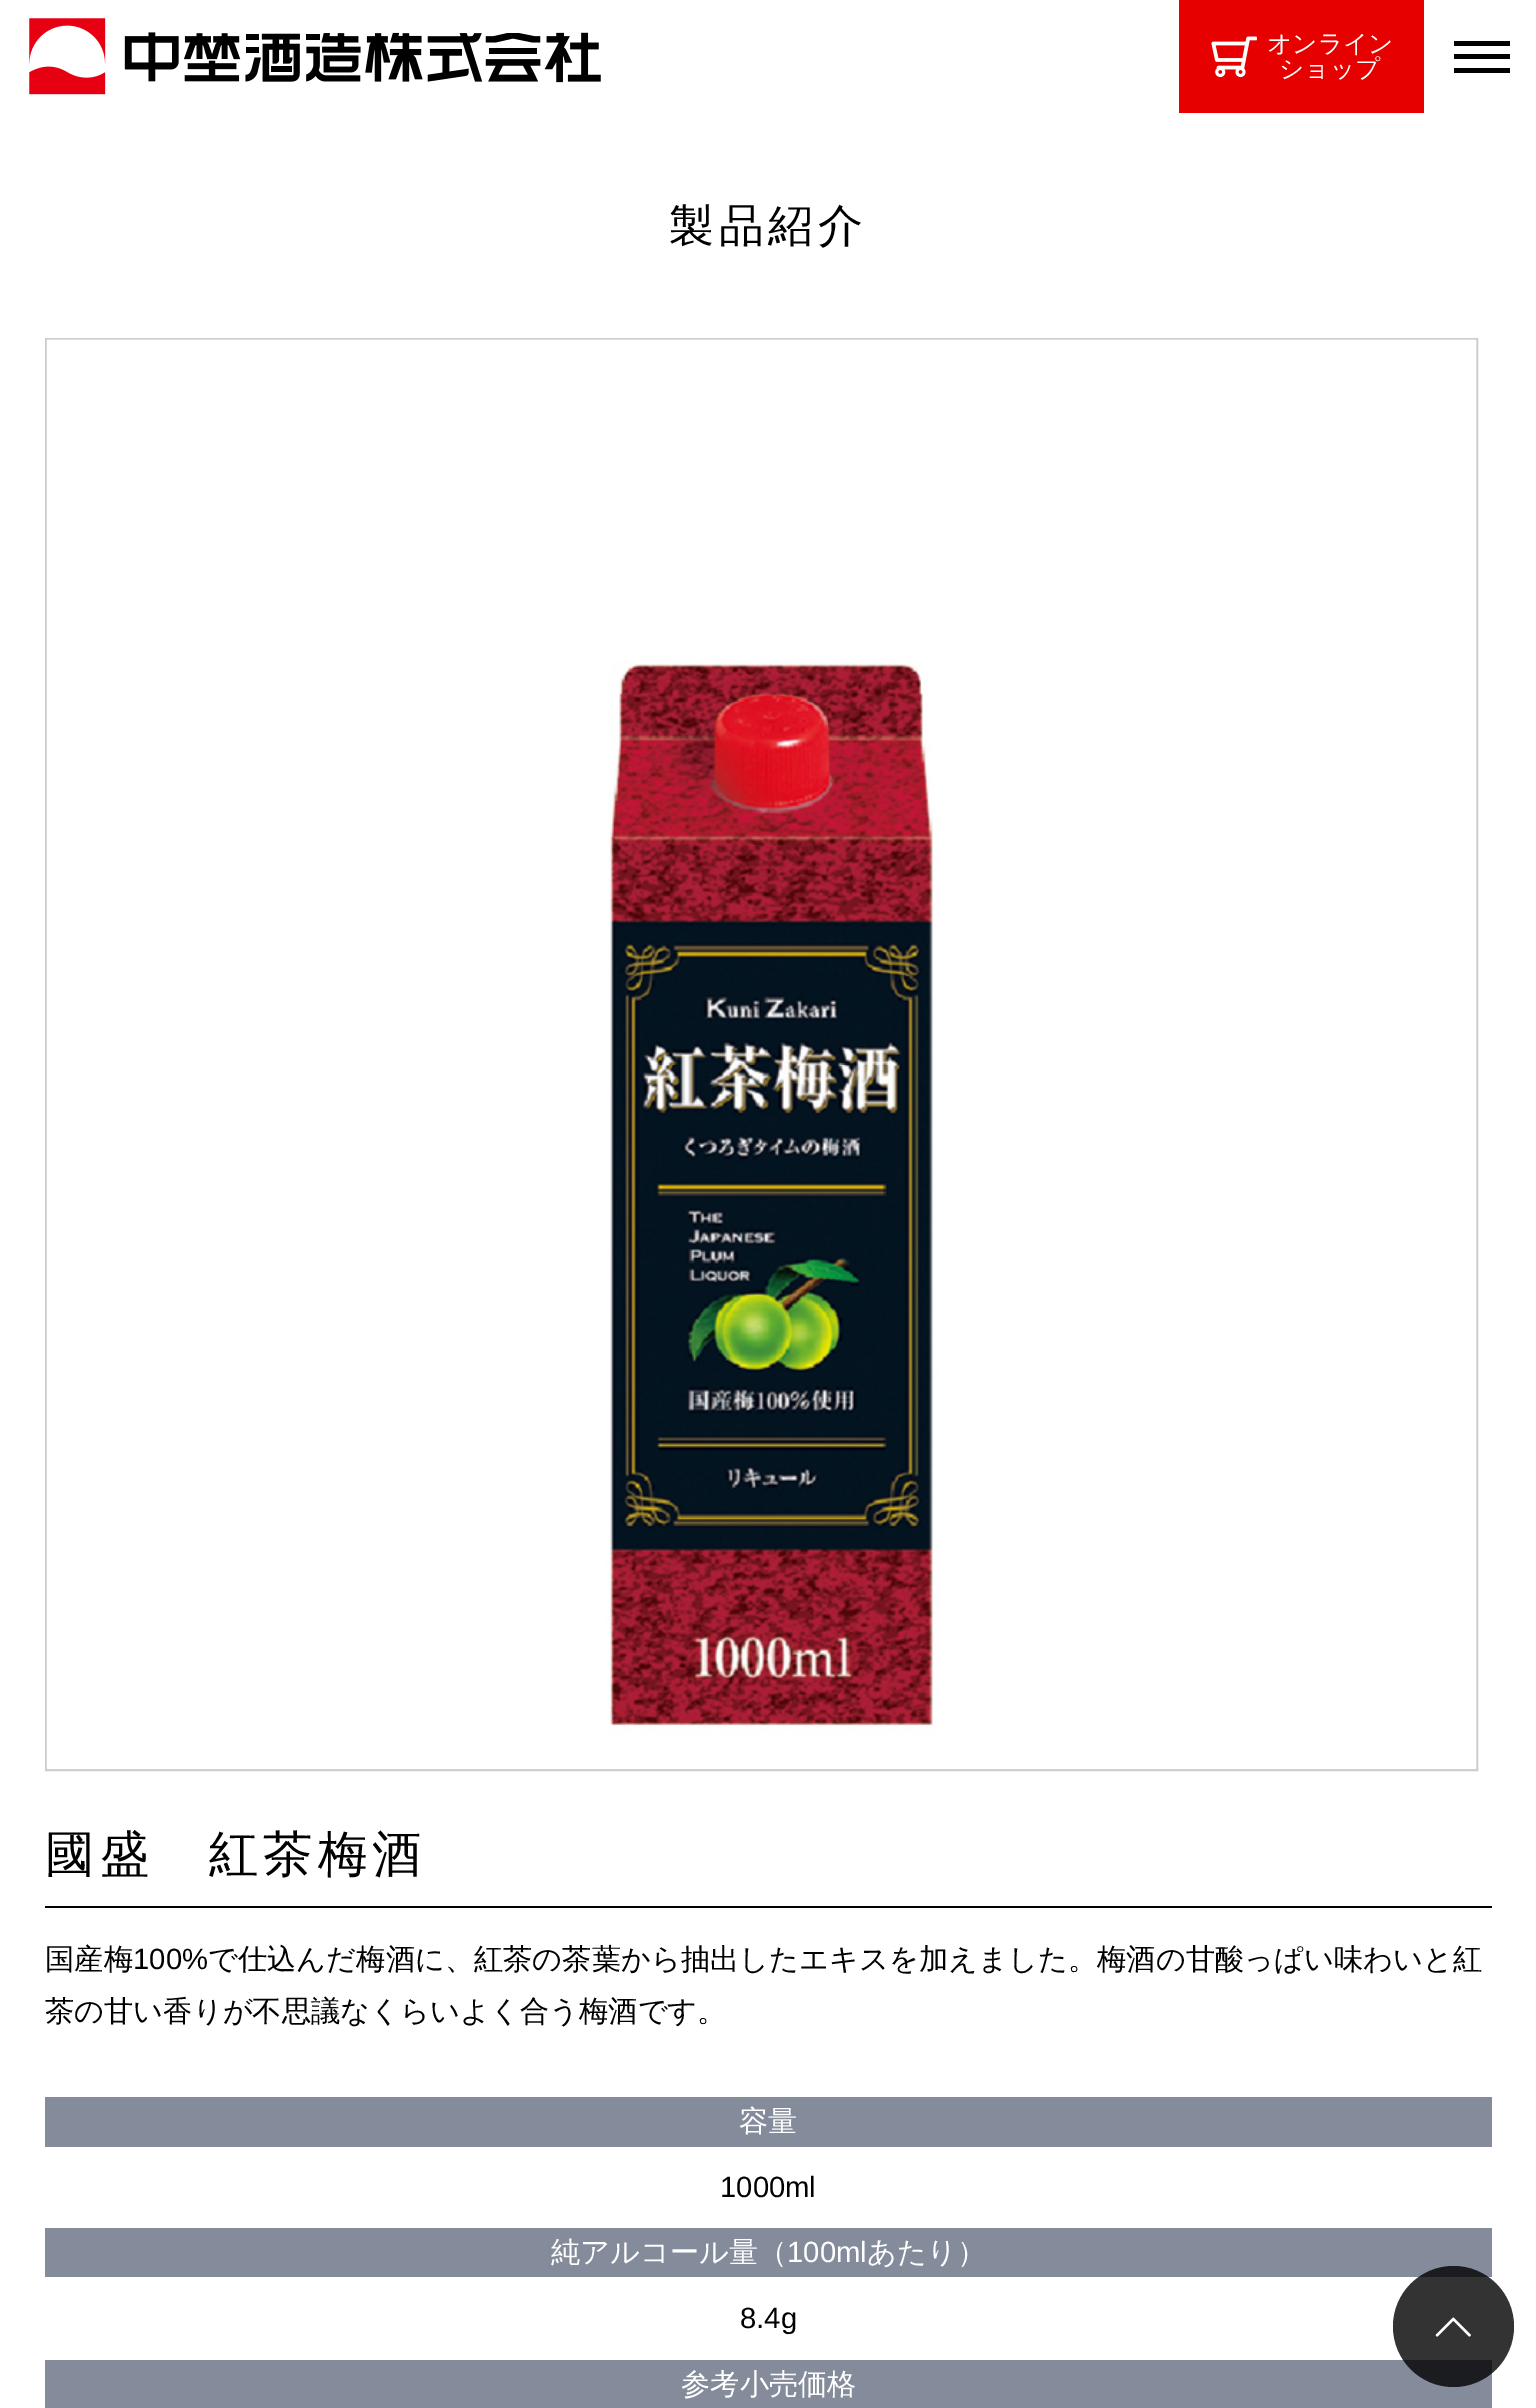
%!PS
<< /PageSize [1536 2408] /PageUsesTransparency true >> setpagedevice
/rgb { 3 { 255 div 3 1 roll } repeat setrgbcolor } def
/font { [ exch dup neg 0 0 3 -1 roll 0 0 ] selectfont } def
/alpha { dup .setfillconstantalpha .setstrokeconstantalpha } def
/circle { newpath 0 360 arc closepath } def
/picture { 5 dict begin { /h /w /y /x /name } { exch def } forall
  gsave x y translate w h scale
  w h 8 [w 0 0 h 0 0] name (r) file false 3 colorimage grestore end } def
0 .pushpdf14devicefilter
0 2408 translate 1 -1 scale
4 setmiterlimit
255 255 255 rgb
0 0 1536 2408 rectfill
(img/1.rgb) 29 18 572 77 picture
230 0 0 rgb
1179 0 245 113 rectfill
(img/2.rgb) 1211 36 46 42 picture
[
  [1454 41 56 5 0 0 0]
  [1454 54 56 5 0 0 0]
  [1454 68 56 5 0 0 0]
] { aload pop rgb rectfill } forall
204 204 204 rgb
2 setlinewidth
46 339 1431 1431 rectstroke
(img/3.rgb) 46 339 1431 1431 picture
[
  [45 1906 1447 2 0 0 0]
  [45 2097 1447 50 132 140 155]
  [45 2228 1447 49 132 140 155]
  [45 2360 1447 48 132 140 155]
] { aload pop rgb rectfill } forall
0.8 alpha
0 0 0 rgb
1453.5 2326.5 60.5 circle fill
1 alpha
(img/4.rgb) 1435 2317 36 20 picture
/WenQuanYiZenHei-Medium 24.75 font
255 255 255 rgb
1267 52 moveto (オンライン) show
1279 77 moveto (ショップ) show
/WenQuanYiZenHei-Medium 45 font
0 0 0 rgb
669 241 moveto 4.5 0 (製品紹介) ashow
/WenQuanYiZenHei-Medium 49.5 font
45 1871 moveto 5 0 (國盛　紅茶梅酒) ashow
/WenQuanYiZenHei-Medium 29.25 font
45 1969 moveto (国産梅) show
/LiberationSans-Regular 29.25 font
133 1969 moveto (100%) show
/WenQuanYiZenHei-Medium 29.25 font
208 1969 moveto (で仕込んだ梅酒に、紅茶の茶葉から抽出したエキスを加えました。梅酒の甘酸っぱい味わいと紅) show
45 2021 moveto (茶の甘い香りが不思議なくらいよく合う梅酒です。) show
255 255 255 rgb
739 2131 moveto (容量) show
/LiberationSans-Regular 29.25 font
0 0 0 rgb
720 2197 moveto (1000ml) show
/WenQuanYiZenHei-Medium 29.25 font
255 255 255 rgb
551 2262 moveto (純アルコール量（) show
/LiberationSans-Regular 29.25 font
787 2262 moveto (100ml) show
/WenQuanYiZenHei-Medium 29.25 font
867 2262 moveto (あたり）) show
/LiberationSans-Regular 29.25 font
0 0 0 rgb
740 2328 moveto (8.4g) show
/WenQuanYiZenHei-Medium 29.25 font
255 255 255 rgb
681 2394 moveto (参考小売価格) show
.poppdf14devicefilter showpage
